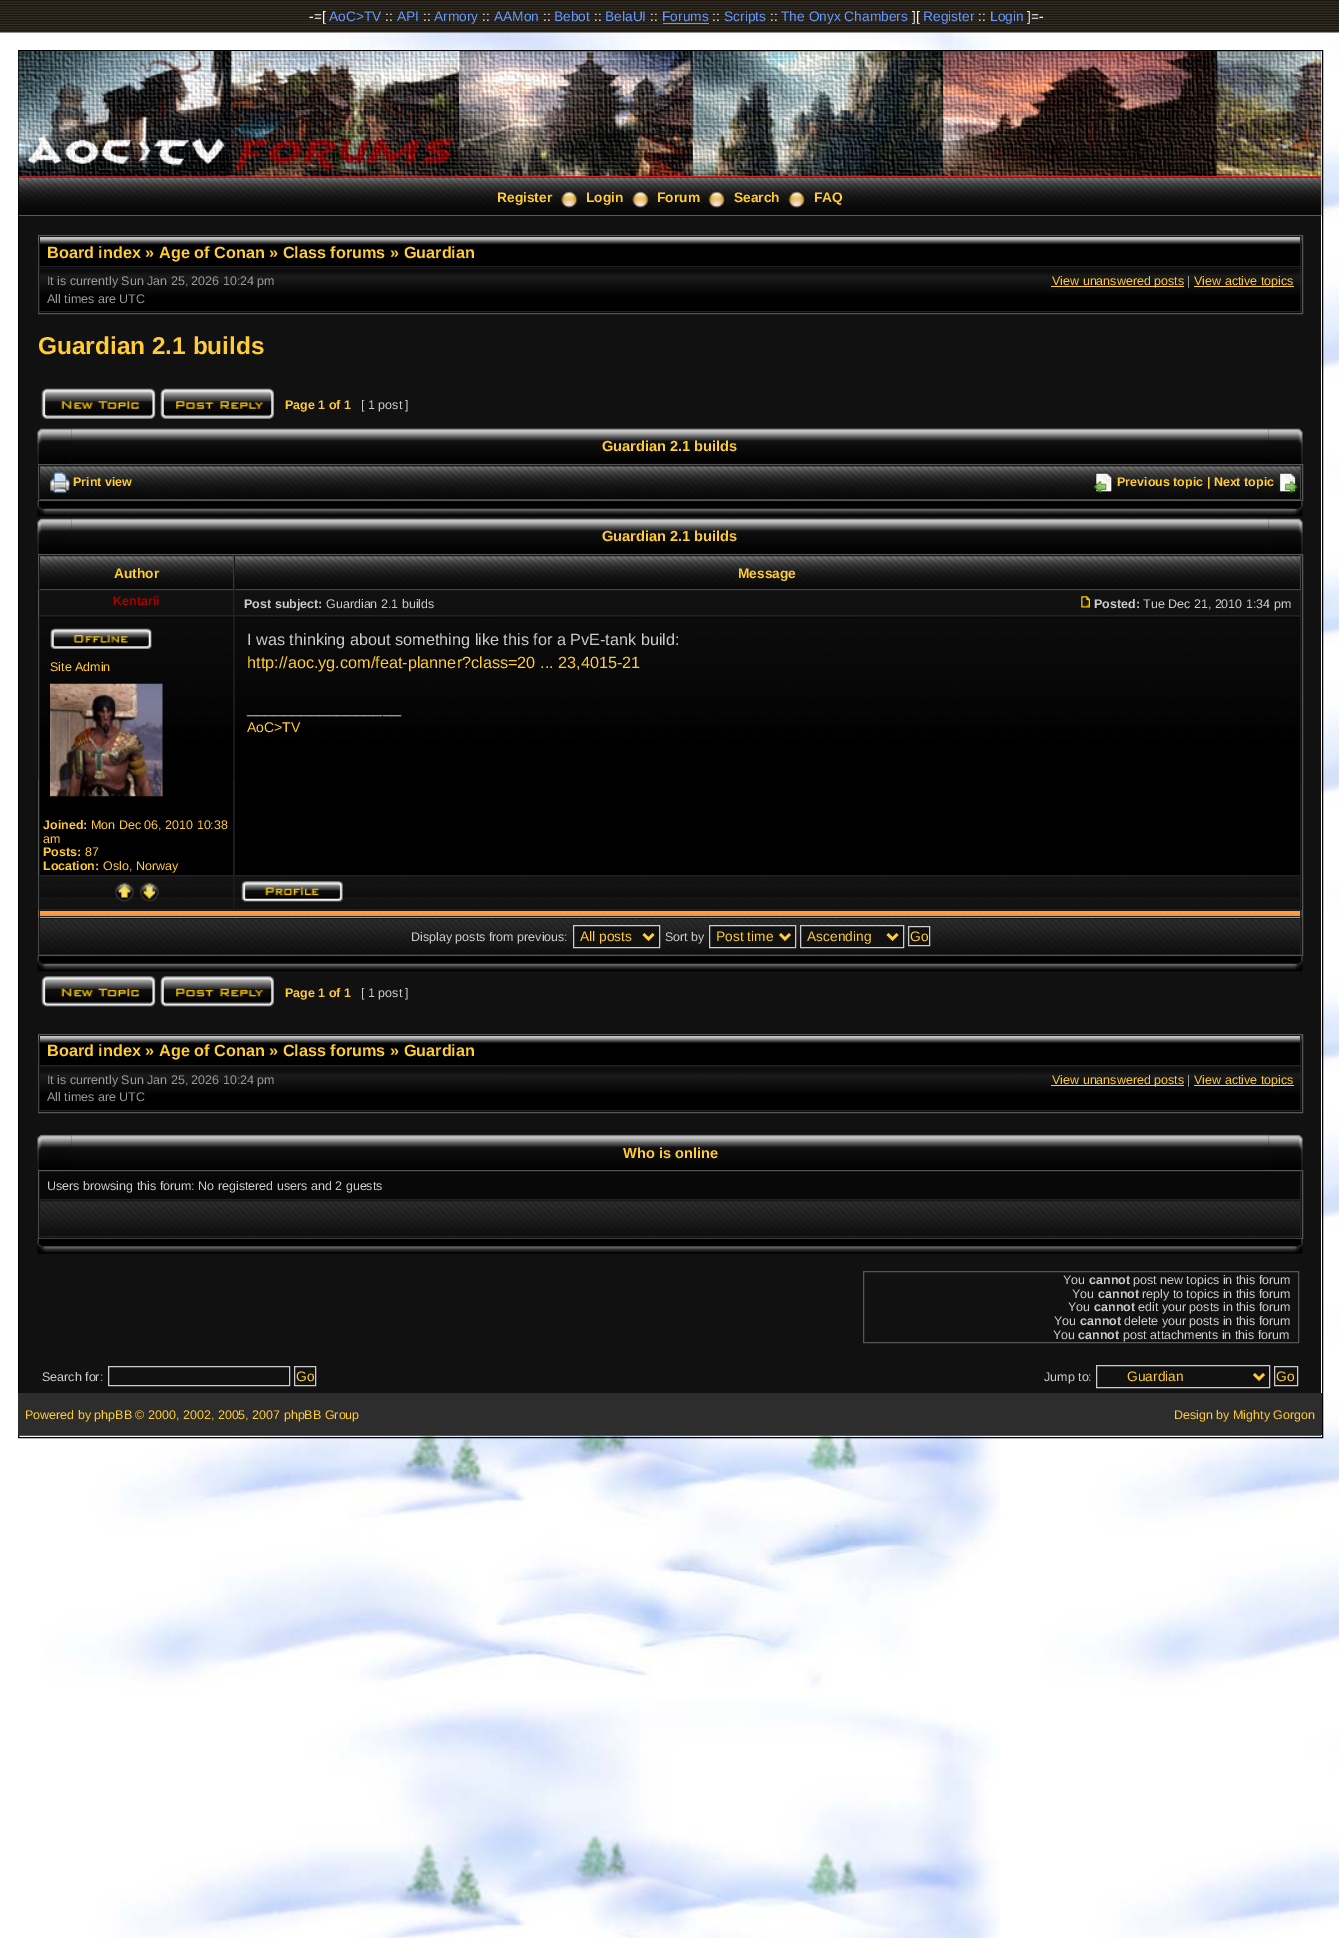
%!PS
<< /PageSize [1339 1938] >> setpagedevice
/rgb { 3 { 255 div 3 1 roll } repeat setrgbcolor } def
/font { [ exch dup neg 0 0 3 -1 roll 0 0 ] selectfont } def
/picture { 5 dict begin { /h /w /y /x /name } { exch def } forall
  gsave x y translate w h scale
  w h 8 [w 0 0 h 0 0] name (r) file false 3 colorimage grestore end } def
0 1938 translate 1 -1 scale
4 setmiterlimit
255 255 255 rgb
0 0 1339 1938 rectfill
(img/1.rgb) 0 32 1339 1906 picture
(img/2.rgb) 0 0 1339 33 picture
102 153 255 rgb
663 23 46 1 rectfill
0 0 0 rgb
18.5 50.5 1304 1387 rectstroke
17 17 17 rgb
19 51 1302 1342 rectfill
(img/3.rgb) 18 51 1304 126 picture
221 34 34 rgb
19 176 1302 1 rectfill
(img/4.rgb) 18 51 441 126 picture
(img/5.rgb) 18 177 1304 40 picture
19 215 1302 1 rectfill
(img/6.rgb) 561 191 17 17 picture
(img/7.rgb) 632 191 17 17 picture
(img/8.rgb) 708 191 17 17 picture
(img/9.rgb) 788 191 17 17 picture
85 85 85 rgb
38.5 235.5 1264 78 rectstroke
(img/10.rgb) 38 236 1264 32 picture
[
  [39 236 1262 1 24 24 24]
  [1300 236 1 32 34 34 34]
  [39 266 1262 1 34 34 34]
  [39 236 1 32 24 24 24]
] { aload pop rgb rectfill } forall
(img/11.rgb) 38 268 1264 45 picture
[
  [39 268 1262 1 24 24 24]
  [1300 268 1 45 34 34 34]
  [39 311 1262 1 34 34 34]
  [39 268 1 45 24 24 24]
  [1051 286 133 1 255 204 51]
  [1194 286 100 1 255 204 51]
] { aload pop rgb rectfill } forall
(img/12.rgb) 41 388 115 31 picture
(img/13.rgb) 160 388 114 31 picture
(img/14.rgb) 37 428 35 36 picture
(img/15.rgb) 1268 428 35 36 picture
(img/16.rgb) 71 428 1198 36 picture
85 85 85 rgb
38.5 464.5 1264 36 rectstroke
(img/17.rgb) 38 465 1264 35 picture
[
  [39 465 1262 1 24 24 24]
  [1300 465 1 35 68 68 68]
  [39 499 1262 1 68 68 68]
  [39 465 1 35 24 24 24]
] { aload pop rgb rectfill } forall
(img/18.rgb) 50 472 20 21 picture
(img/19.rgb) 1093 472 20 21 picture
(img/20.rgb) 1279 472 19 21 picture
(img/21.rgb) 37 501 13 16 picture
(img/22.rgb) 1290 501 13 16 picture
(img/23.rgb) 50 501 1240 16 picture
(img/14.rgb) 37 518 35 36 picture
(img/15.rgb) 1268 518 35 36 picture
(img/24.rgb) 71 518 1198 36 picture
85 85 85 rgb
38.5 554.5 1264 401 rectstroke
(img/25.rgb) 38 556 195 34 picture
[
  [39 555 1262 1 24 24 24]
  [233 555 1 35 68 68 68]
  [39 589 195 1 68 68 68]
  [39 555 1 35 24 24 24]
] { aload pop rgb rectfill } forall
(img/26.rgb) 233 556 1069 34 picture
[
  [1300 555 1 35 68 68 68]
  [234 589 1067 1 68 68 68]
  [234 555 1 35 24 24 24]
  [39 590 1262 1 24 24 24]
  [233 590 1 26 34 34 34]
  [39 615 195 1 34 34 34]
  [39 590 1 26 24 24 24]
  [1300 590 1 26 34 34 34]
  [234 615 1067 1 34 34 34]
  [234 590 1 26 24 24 24]
] { aload pop rgb rectfill } forall
(img/27.rgb) 1081 596 9 12 picture
0 0 0 rgb
40 617 193 258 rectfill
(img/28.rgb) 38 617 195 163 picture
[
  [39 616 1262 1 24 24 24]
  [233 616 1 260 34 34 34]
  [39 875 195 1 34 34 34]
  [39 616 1 260 24 24 24]
] { aload pop rgb rectfill } forall
(img/29.rgb) 50 628 102 21 picture
(img/30.rgb) 50 683 113 114 picture
0 0 0 rgb
235 617 1065 258 rectfill
(img/31.rgb) 233 617 1069 163 picture
[
  [1300 616 1 260 34 34 34]
  [234 875 1067 1 34 34 34]
  [234 616 1 260 24 24 24]
] { aload pop rgb rectfill } forall
(img/32.rgb) 38 876 195 34 picture
[
  [39 876 195 1 24 24 24]
  [233 876 1 34 34 34 34]
  [39 909 195 1 34 34 34]
  [39 876 1 34 24 24 24]
] { aload pop rgb rectfill } forall
(img/33.rgb) 115 882 19 20 picture
(img/34.rgb) 140 882 19 20 picture
(img/35.rgb) 233 876 1067 34 picture
[
  [234 876 1067 1 24 24 24]
  [1300 876 1 34 34 34 34]
  [234 909 1067 1 34 34 34]
  [234 876 1 34 24 24 24]
] { aload pop rgb rectfill } forall
(img/36.rgb) 241 881 102 21 picture
255 136 0 rgb
39 917 1262 1 rectfill
(img/37.rgb) 38 910 1264 8 picture
[
  [39 910 1262 1 24 24 24]
  [1300 910 1 8 34 34 34]
  [39 916 1262 1 34 34 34]
  [39 910 1 8 24 24 24]
] { aload pop rgb rectfill } forall
(img/38.rgb) 38 918 1264 37 picture
[
  [39 918 1262 1 24 24 24]
  [1300 918 1 37 34 34 34]
  [39 954 1262 1 34 34 34]
  [39 918 1 37 24 24 24]
] { aload pop rgb rectfill } forall
17 17 17 rgb
573.5 925.5 moveto 659.5 925.5 lineto 659.5 947.5 lineto 573.5 947.5 lineto closepath gsave fill grestore
204 204 204 rgb
stroke
255 204 51 rgb
2.5 setlinewidth
643.5 934 moveto 648.5 939 lineto 653.5 934 lineto stroke
17 17 17 rgb
709.5 925.5 moveto 795.5 925.5 lineto 795.5 947.5 lineto 709.5 947.5 lineto closepath gsave fill grestore
204 204 204 rgb
1 setlinewidth
stroke
255 204 51 rgb
2.5 setlinewidth
780 934 moveto 785 939 lineto 790 934 lineto stroke
17 17 17 rgb
800.5 925.5 moveto 903.5 925.5 lineto 903.5 947.5 lineto 800.5 947.5 lineto closepath gsave fill grestore
204 204 204 rgb
1 setlinewidth
stroke
255 204 51 rgb
2.5 setlinewidth
887.5 934 moveto 892.5 939 lineto 897.5 934 lineto stroke
17 17 17 rgb
908.5 926.5 moveto 929.5 926.5 lineto 929.5 945.5 lineto 908.5 945.5 lineto closepath gsave fill grestore
204 204 204 rgb
1 setlinewidth
stroke
(img/21.rgb) 37 956 13 16 picture
(img/22.rgb) 1290 956 13 16 picture
(img/23.rgb) 50 956 1240 16 picture
(img/39.rgb) 41 976 115 31 picture
(img/40.rgb) 160 976 114 31 picture
85 85 85 rgb
38.5 1034.5 1264 78 rectstroke
(img/41.rgb) 38 1035 1264 32 picture
[
  [39 1035 1262 1 24 24 24]
  [1300 1035 1 31 34 34 34]
  [39 1065 1262 1 34 34 34]
  [39 1035 1 31 24 24 24]
] { aload pop rgb rectfill } forall
(img/42.rgb) 38 1067 1264 45 picture
[
  [39 1066 1262 1 24 24 24]
  [1300 1066 1 45 34 34 34]
  [39 1110 1262 1 34 34 34]
  [39 1066 1 45 24 24 24]
  [1051 1085 133 1 255 204 51]
  [1194 1085 100 1 255 204 51]
] { aload pop rgb rectfill } forall
(img/43.rgb) 37 1134 35 36 picture
(img/44.rgb) 1268 1134 35 36 picture
(img/45.rgb) 71 1134 1198 36 picture
85 85 85 rgb
38.5 1170.5 1264 68 rectstroke
[
  [40 1172 1260 27 8 8 8]
  [39 1171 1262 1 24 24 24]
  [1300 1171 1 29 34 34 34]
  [39 1199 1262 1 34 34 34]
  [39 1171 1 29 24 24 24]
] { aload pop rgb rectfill } forall
(img/46.rgb) 38 1201 1264 37 picture
[
  [39 1200 1262 1 24 24 24]
  [1300 1200 1 38 34 34 34]
  [39 1236 1262 1 34 34 34]
  [39 1200 1 38 24 24 24]
] { aload pop rgb rectfill } forall
(img/47.rgb) 37 1238 13 16 picture
(img/48.rgb) 1290 1238 13 16 picture
(img/49.rgb) 50 1238 1240 16 picture
85 85 85 rgb
863.5 1271.5 435 71 rectstroke
204 204 204 rgb
108.5 1366.5 181 19 rectstroke
294.5 1366.5 21 19 rectstroke
1096.5 1365.5 173 22 rectstroke
255 204 51 rgb
2.5 setlinewidth
1254 1374 moveto 1259 1379 lineto 1264 1374 lineto stroke
204 204 204 rgb
1 setlinewidth
1274.5 1366.5 23 19 rectstroke
85 85 85 rgb
19 1435 1302 1 rectfill
45 45 45 rgb
18 1393 1304 42 rectfill
/LiberationSans-Regular 13.75 font
255 255 255 rgb
309 21 moveto (-=[) show
102 153 255 rgb
329 21 moveto (AoC>TV) show
255 255 255 rgb
385 21 moveto (::) show
102 153 255 rgb
397 21 moveto (API) show
255 255 255 rgb
423 21 moveto (::) show
102 153 255 rgb
434 21 moveto (Armory) show
255 255 255 rgb
482 21 moveto (::) show
102 153 255 rgb
494 21 moveto (AAMon) show
255 255 255 rgb
543 21 moveto (::) show
102 153 255 rgb
554 21 moveto (Bebot) show
255 255 255 rgb
594 21 moveto (::) show
102 153 255 rgb
605 21 moveto (BelaUI) show
255 255 255 rgb
650 21 moveto (::) show
102 153 255 rgb
662 21 moveto (Forums) show
255 255 255 rgb
712 21 moveto (::) show
102 153 255 rgb
724 21 moveto (Scripts) show
255 255 255 rgb
770 21 moveto (::) show
102 153 255 rgb
781 21 moveto (The Onyx Chambers) show
255 255 255 rgb
912 21 moveto (][) show
102 153 255 rgb
923 21 moveto (Register) show
255 255 255 rgb
978 21 moveto (::) show
102 153 255 rgb
990 21 moveto (Login) show
255 255 255 rgb
1027 21 moveto (]=-) show
/LiberationSans-Bold 13.75 font
255 204 51 rgb
[
  [(Register) 497 202]
  [(Login) 586 202]
  [(Forum) 657 202]
  [(Search) 734 202]
  [(FAQ) 814 202]
] { aload pop moveto show } forall
/LiberationSans-Bold 16.25 font
47 258 moveto (Board index » Age of Conan » Class forums » Guardian) show
/LiberationSans-Regular 12.5 font
153 153 153 rgb
47 285 moveto (It is currently Sun Jan 25, 2026 10:24 pm) show
47 303 moveto (All times are UTC) show
255 204 51 rgb
1052 285 moveto (View unanswered posts) show
153 153 153 rgb
1187 285 moveto (|) show
255 204 51 rgb
1194 285 moveto (View active topics) show
/LiberationSans-Bold 24.4 font
38 354 moveto (Guardian 2.1 builds) show
/LiberationSans-Bold 12.5 font
285 409 moveto (Page 1 of 1) show
/LiberationSans-Regular 12.5 font
204 204 204 rgb
361 409 moveto ([ 1 post ]) show
/LiberationSans-Bold 14.6 font
255 204 51 rgb
602 451 moveto (Guardian 2.1 builds) show
/LiberationSans-Bold 12.5 font
73 486 moveto (Print view) show
1117 486 moveto (Previous topic | Next topic) show
/LiberationSans-Bold 14.6 font
602 541 moveto (Guardian 2.1 builds) show
/LiberationSans-Bold 13.75 font
114 578 moveto (Author) show
738 578 moveto (Message) show
/LiberationSans-Bold 12.5 font
170 0 0 rgb
113 605 moveto (Kentarii) show
204 204 204 rgb
244 608 moveto (Post subject:) show
/LiberationSans-Regular 12.5 font
326 608 moveto (Guardian 2.1 builds) show
/LiberationSans-Bold 12.5 font
1094 608 moveto (Posted:) show
/LiberationSans-Regular 12.5 font
1143 608 moveto (Tue Dec 21, 2010 1:34 pm) show
255 204 51 rgb
50 671 moveto (Site Admin) show
/LiberationSans-Bold 12.5 font
43 829 moveto (Joined:) show
/LiberationSans-Regular 12.5 font
91 829 moveto (Mon Dec 06, 2010 10:38) show
43 843 moveto (am) show
/LiberationSans-Bold 12.5 font
43 856 moveto (Posts:) show
/LiberationSans-Regular 12.5 font
85 856 moveto (87) show
/LiberationSans-Bold 12.5 font
43 870 moveto (Location:) show
/LiberationSans-Regular 12.5 font
103 870 moveto (Oslo, Norway) show
/LiberationSans-Regular 16.25 font
204 204 204 rgb
247 645 moveto (I was thinking about something like this for a PvE-tank build:) show
255 204 51 rgb
247 668 moveto (http://aoc.yg.com/feat-planner?class=20 ... 23,4015-21) show
204 204 204 rgb
247 713 moveto (_________________) show
/LiberationSans-Regular 14 font
255 204 51 rgb
247 732 moveto (AoC>TV) show
/LiberationSans-Regular 12.5 font
204 204 204 rgb
411 941 moveto (Display posts from previous:) show
/LiberationSans-Regular 13.75 font
255 204 51 rgb
580 941 moveto (All posts) show
/LiberationSans-Regular 12.5 font
204 204 204 rgb
665 941 moveto (Sort by) show
/LiberationSans-Regular 13.75 font
255 204 51 rgb
[
  [(Post time) 716 941]
  [(Ascending) 807 941]
  [(Go) 910 941]
] { aload pop moveto show } forall
/LiberationSans-Bold 12.5 font
285 997 moveto (Page 1 of 1) show
/LiberationSans-Regular 12.5 font
204 204 204 rgb
361 997 moveto ([ 1 post ]) show
/LiberationSans-Bold 16.25 font
255 204 51 rgb
47 1056 moveto (Board index » Age of Conan » Class forums » Guardian) show
/LiberationSans-Regular 12.5 font
153 153 153 rgb
47 1084 moveto (It is currently Sun Jan 25, 2026 10:24 pm) show
47 1101 moveto (All times are UTC) show
255 204 51 rgb
1052 1084 moveto (View unanswered posts) show
153 153 153 rgb
1187 1084 moveto (|) show
255 204 51 rgb
1194 1084 moveto (View active topics) show
/LiberationSans-Bold 14.6 font
623 1158 moveto (Who is online) show
/LiberationSans-Regular 12.5 font
204 204 204 rgb
47 1190 moveto (Users browsing this forum: No registered users and 2 guests) show
1063 1284 moveto (You) show
/LiberationSans-Bold 12.5 font
1089 1284 moveto (cannot) show
/LiberationSans-Regular 12.5 font
1133 1284 moveto (post new topics in this forum) show
1072 1298 moveto (You) show
/LiberationSans-Bold 12.5 font
1098 1298 moveto (cannot) show
/LiberationSans-Regular 12.5 font
1142 1298 moveto (reply to topics in this forum) show
1068 1311 moveto (You) show
/LiberationSans-Bold 12.5 font
1094 1311 moveto (cannot) show
/LiberationSans-Regular 12.5 font
1138 1311 moveto (edit your posts in this forum) show
1054 1325 moveto (You) show
/LiberationSans-Bold 12.5 font
1080 1325 moveto (cannot) show
/LiberationSans-Regular 12.5 font
1124 1325 moveto (delete your posts in this forum) show
1053 1339 moveto (You) show
/LiberationSans-Bold 12.5 font
1078 1339 moveto (cannot) show
/LiberationSans-Regular 12.5 font
1123 1339 moveto (post attachments in this forum) show
42 1381 moveto (Search for:) show
/LiberationSans-Regular 13.75 font
255 204 51 rgb
296 1381 moveto (Go) show
/LiberationSans-Regular 12.5 font
204 204 204 rgb
1044 1381 moveto (Jump to:) show
/LiberationSans-Regular 13.75 font
255 204 51 rgb
1127 1381 moveto (Guardian) show
1276 1381 moveto (Go) show
/LiberationSans-Regular 12.5 font
25 1419 moveto (Powered by phpBB © 2000, 2002, 2005, 2007 phpBB Group) show
1174 1419 moveto (Design by Mighty Gorgon) show
showpage
